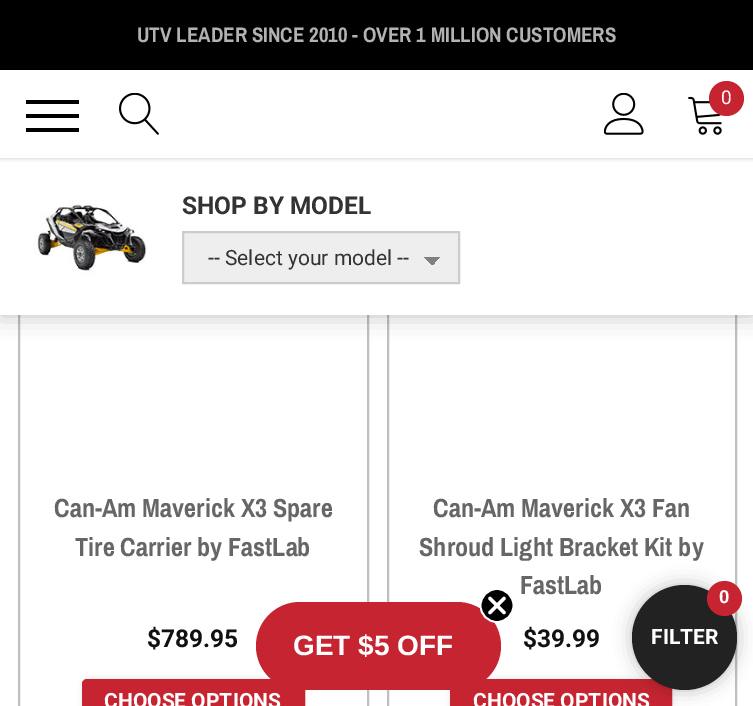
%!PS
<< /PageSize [753 706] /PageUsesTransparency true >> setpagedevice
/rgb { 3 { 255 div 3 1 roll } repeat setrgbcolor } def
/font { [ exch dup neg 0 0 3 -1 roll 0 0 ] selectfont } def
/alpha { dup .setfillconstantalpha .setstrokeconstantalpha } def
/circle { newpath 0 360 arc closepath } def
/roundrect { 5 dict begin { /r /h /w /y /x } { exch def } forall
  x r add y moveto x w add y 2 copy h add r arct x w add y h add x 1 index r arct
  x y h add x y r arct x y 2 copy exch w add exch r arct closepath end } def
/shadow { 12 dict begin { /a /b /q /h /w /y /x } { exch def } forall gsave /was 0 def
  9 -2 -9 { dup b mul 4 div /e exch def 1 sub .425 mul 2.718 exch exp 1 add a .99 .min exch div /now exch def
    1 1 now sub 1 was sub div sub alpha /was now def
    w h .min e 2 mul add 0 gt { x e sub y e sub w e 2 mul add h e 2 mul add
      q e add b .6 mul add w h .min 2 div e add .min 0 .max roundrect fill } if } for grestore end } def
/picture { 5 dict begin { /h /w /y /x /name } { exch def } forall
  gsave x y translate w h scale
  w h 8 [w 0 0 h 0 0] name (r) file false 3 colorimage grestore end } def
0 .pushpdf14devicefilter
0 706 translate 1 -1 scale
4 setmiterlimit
255 255 255 rgb
0 0 753 706 rectfill
191 191 191 rgb
2 setlinewidth
19 103 349 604 rectstroke
388 103 348 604 rectstroke
0 0 0 rgb
0 158 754 157 0 12 0.25 shadow
255 255 255 rgb
0 158 753 157 rectfill
0 0 0 rgb
0 2 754 157 0 2 0.15 shadow
[
  [0 70 753 88 255 255 255]
  [0 0 753 70 0 0 0]
  [26 114 53 4 0 0 0]
  [26 100 53 4 0 0 0]
  [26 128 53 4 0 0 0]
] { aload pop rgb rectfill } forall
(img/1.rgb) 119 93 40 42 picture
(img/2.rgb) 604 93 40 42 picture
(img/3.rgb) 688 96 34 39 picture
198 36 49 rgb
726.5 98.5 17.5 circle fill
(img/4.rgb) 34 200 113 75 picture
238 238 238 rgb
184 233 274 49 rectfill
gsave 432 257 moveto 441 257 lineto 441 265 lineto 432 265 lineto closepath clip newpath
<< /ShadingType 2 /ColorSpace /DeviceRGB /Coords [432 257 441 266] /Extend [true true] /Function << /FunctionType 3 /Domain [0 1] /Functions [<< /FunctionType 2 /Domain [0 1] /C0 [0.502 0.502 0.502] /C1 [0.502 0.502 0.502] /N 1 >> << /FunctionType 2 /Domain [0 1] /C0 [0.933 0.933 0.933] /C1 [0.933 0.933 0.933] /N 1 >>] /Bounds [0.5] /Encode [0 1 0 1] >> >> shfill grestore
gsave 424 257 moveto 432 257 lineto 432 266 lineto 424 266 lineto closepath clip newpath
<< /ShadingType 2 /ColorSpace /DeviceRGB /Coords [424 266 432 257] /Extend [true true] /Function << /FunctionType 3 /Domain [0 1] /Functions [<< /FunctionType 2 /Domain [0 1] /C0 [0.933 0.933 0.933] /C1 [0.933 0.933 0.933] /N 1 >> << /FunctionType 2 /Domain [0 1] /C0 [0.502 0.502 0.502] /C1 [0.502 0.502 0.502] /N 1 >>] /Bounds [0.5] /Encode [0 1 0 1] >> >> shfill grestore
204 204 204 rgb
183 232 276 51 rectstroke
0 0 0 rgb
81 677 225 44 7 2.5 0.05 shadow
198 36 49 rgb
83 680 221 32 4 roundrect gsave fill grestore
stroke
0 0 0 rgb
448 677 226 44 7 2.5 0.05 shadow
198 36 49 rgb
451 680 moveto 671 680 lineto 671 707 lineto 451 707 lineto closepath gsave fill grestore
stroke
0 0 0 rgb
632 585 105 105 52.5 9 0.25 shadow
34 34 34 rgb
684.5 637.5 52.5 circle fill
198 36 49 rgb
724.5 598.5 17.5 circle fill
256 602 245 88 44 roundrect fill
0 0 0 rgb
497 605.5 16.5 circle fill
gsave
480 588 35 35 rectclip
255 255 255 rgb
1.8 setlinewidth
497 605.5 16.5 circle stroke
grestore
255 255 255 rgb
3.5 setlinewidth
1 setlinecap
1 setlinejoin
490 598.5 moveto 504 612.5 lineto 490 612.5 moveto 504 598.5 lineto closepath stroke
/ArchivoNarrow-Bold 21 font
178 178 178 rgb
137 42 moveto (UTV LEADER SINCE 2010 - OVER 1 MILLION CUSTOMERS) show
/Roboto-Regular 19 font
255 255 255 rgb
721 104 moveto (0) show
/Roboto-Bold 24.5 font
51 51 51 rgb
182 214 moveto (SHOP BY MODEL) show
/Roboto-Regular 21 font
208 265 moveto (-- Select your model --) show
/ArchivoNarrow-Bold 26.25 font
102 102 102 rgb
54 517 moveto (Can-Am Maverick X3 Spare) show
75 556 moveto (Tire Carrier by FastLab) show
/Roboto-Bold 24.5 font
17 17 17 rgb
147 647 moveto ($789.95) show
/Roboto-Bold 21 font
255 255 255 rgb
104 708 moveto (CHOOSE OPTIONS) show
/ArchivoNarrow-Bold 26.25 font
102 102 102 rgb
[
  [(Can-Am Maverick X3 Fan) 433 517]
  [(Shroud Light Bracket Kit by) 419 556]
  [(FastLab) 520 594]
] { aload pop moveto show } forall
/Roboto-Bold 24.5 font
17 17 17 rgb
523 647 moveto ($39.99) show
/Roboto-Bold 21 font
255 255 255 rgb
473 708 moveto (CHOOSE OPTIONS) show
/Roboto-Bold 18 font
719 603 moveto (0) show
/Roboto-Bold 21 font
651 644 moveto (FILTER) show
/LiberationSans-Bold 28 font
293 655 moveto (GET $5 OFF) show
.poppdf14devicefilter showpage
